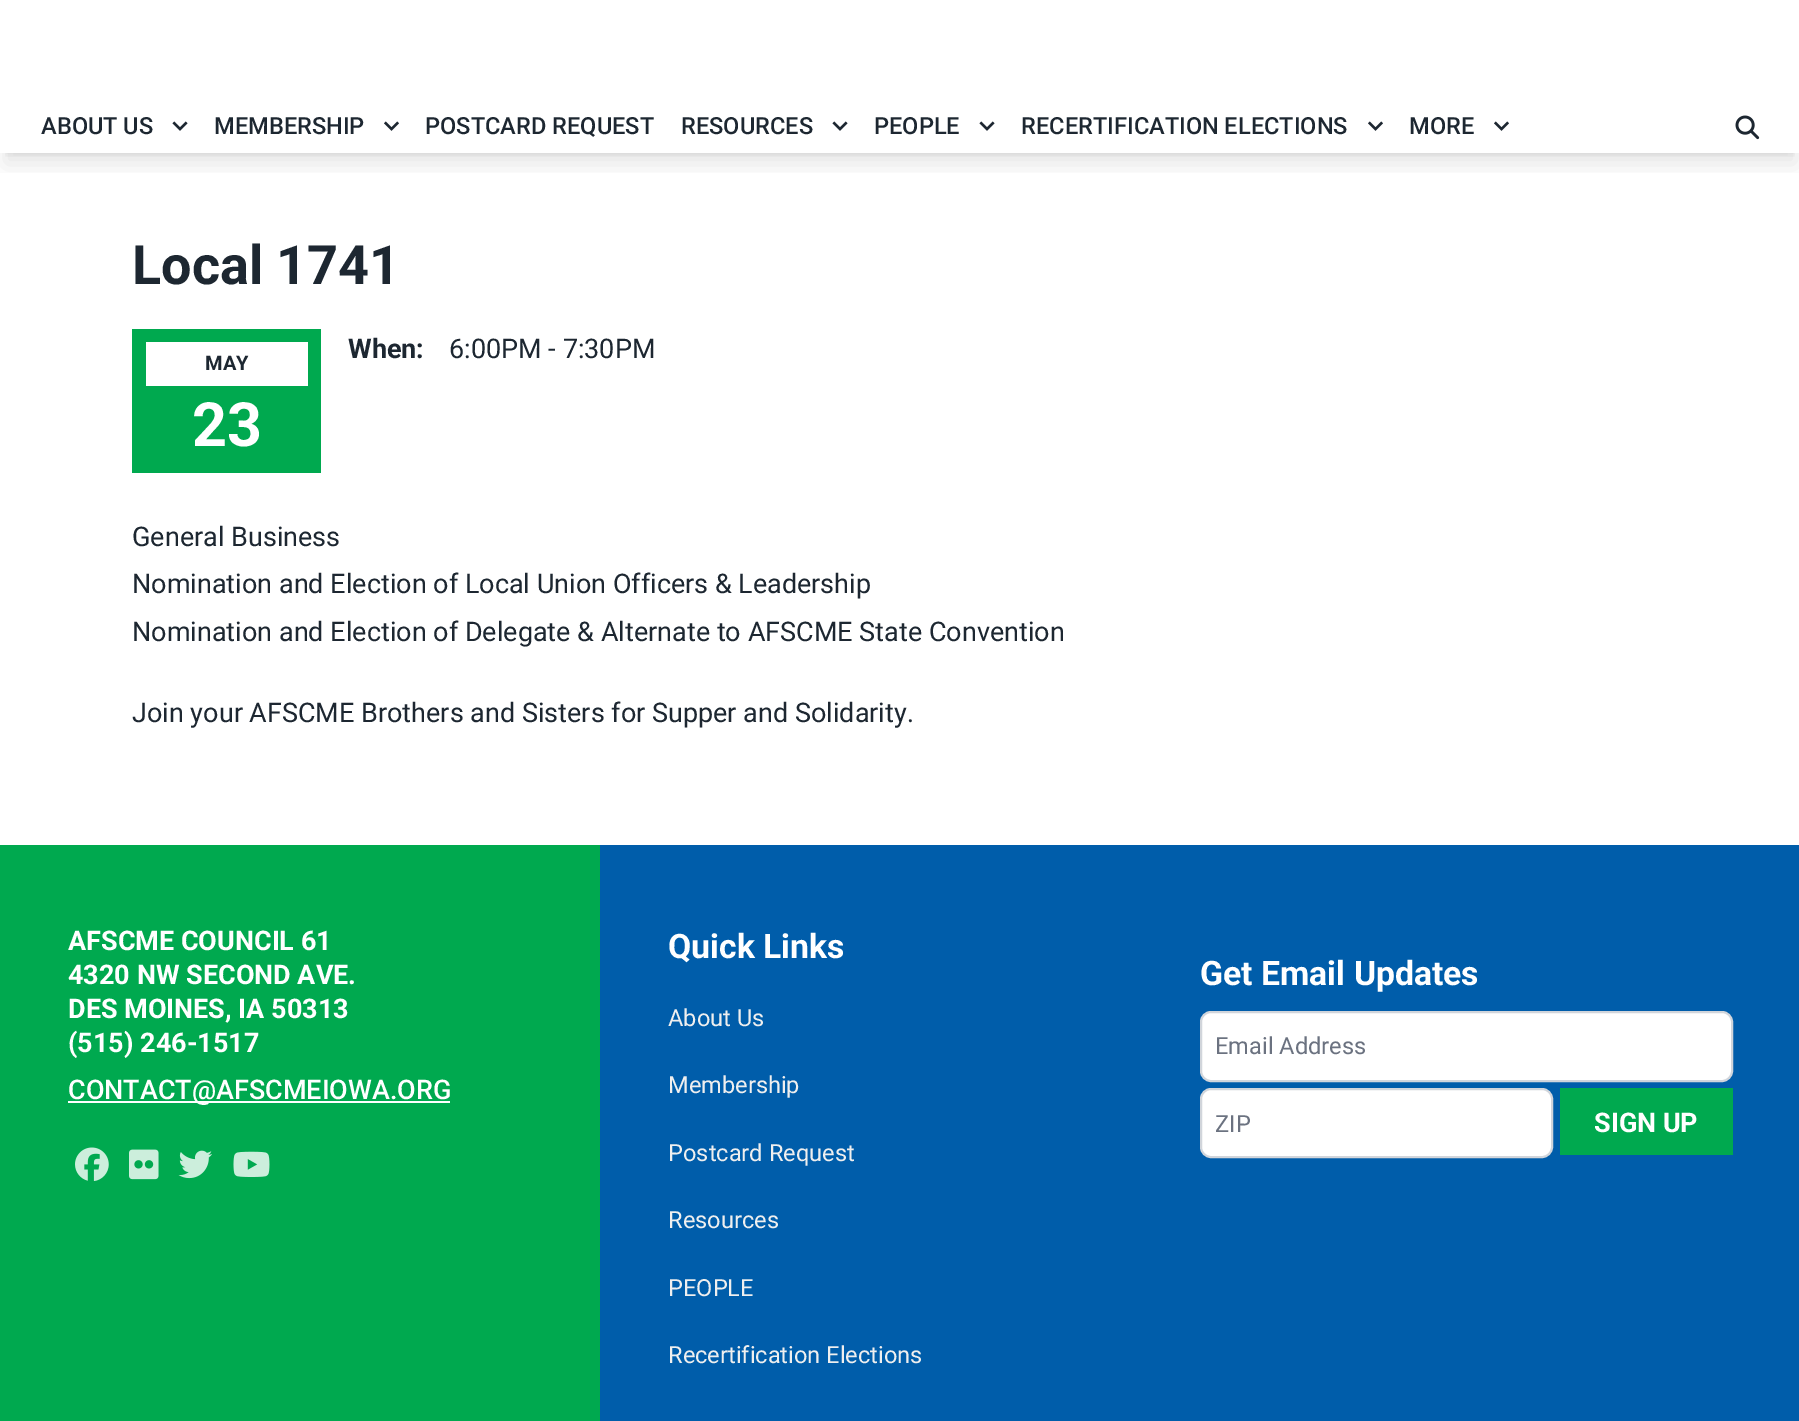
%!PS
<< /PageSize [1799 1421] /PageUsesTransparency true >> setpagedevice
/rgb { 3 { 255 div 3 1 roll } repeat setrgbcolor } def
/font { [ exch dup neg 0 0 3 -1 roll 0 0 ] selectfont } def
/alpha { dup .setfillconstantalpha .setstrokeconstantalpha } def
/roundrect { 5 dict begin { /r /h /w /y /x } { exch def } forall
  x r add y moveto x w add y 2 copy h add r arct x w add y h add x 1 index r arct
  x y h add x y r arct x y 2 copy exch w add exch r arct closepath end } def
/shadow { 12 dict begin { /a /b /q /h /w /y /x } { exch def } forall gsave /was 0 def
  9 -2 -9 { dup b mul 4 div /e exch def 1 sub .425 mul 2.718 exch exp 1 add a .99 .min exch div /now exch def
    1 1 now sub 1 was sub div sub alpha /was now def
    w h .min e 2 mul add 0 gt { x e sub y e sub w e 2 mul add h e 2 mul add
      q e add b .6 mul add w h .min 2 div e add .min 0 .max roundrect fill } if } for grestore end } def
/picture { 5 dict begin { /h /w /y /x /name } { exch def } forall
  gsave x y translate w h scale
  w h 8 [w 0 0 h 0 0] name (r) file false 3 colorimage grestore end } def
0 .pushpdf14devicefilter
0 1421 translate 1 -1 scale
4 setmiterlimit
255 255 255 rgb
0 0 1799 1421 rectfill
gsave
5 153 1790 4 rectclip
0 0 0 rgb
6 12 1788 141 0 4.5 0.1 shadow
grestore
gsave
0 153 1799 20 rectclip
0 0 0 rgb
5 20 1791 144 0 11 0.1 shadow
grestore
(img/1.rgb) 172 121 16 10 picture
(img/2.rgb) 384 121 15 10 picture
(img/1.rgb) 832 121 16 10 picture
(img/1.rgb) 979 121 16 10 picture
(img/2.rgb) 1368 121 15 10 picture
(img/2.rgb) 1494 121 15 10 picture
(img/3.rgb) 1735 115 25 25 picture
[
  [132 329 189 144 0 169 79]
  [146 342 162 44 255 255 255]
  [0 845 600 576 0 169 79]
  [68 1101 382 2 255 255 255]
] { aload pop rgb rectfill } forall
(img/4.rgb) 75 1147 34 34 picture
(img/5.rgb) 129 1149 30 31 picture
(img/6.rgb) 178 1150 34 29 picture
(img/7.rgb) 233 1151 37 26 picture
0 93 170 rgb
600 845 1199 576 rectfill
255 255 255 rgb
1201 1012 531 69 10 roundrect gsave fill grestore
209 213 219 rgb
2 setlinewidth
stroke
255 255 255 rgb
1201 1089 351 68 10 roundrect gsave fill grestore
209 213 219 rgb
stroke
0 169 79 rgb
1560 1088 173 67 rectfill
/Roboto-Medium 23.6 font
29 39 49 rgb
[
  [(ABOUT US) 41 134]
  [(MEMBERSHIP) 214 134]
  [(POSTCARD REQUEST) 425 134]
  [(RESOURCES) 681 134]
  [(PEOPLE) 874 134]
  [(RECERTIFICATION ELECTIONS) 1021 134]
  [(MORE) 1409 134]
] { aload pop moveto show } forall
/Roboto-Bold 54 font
132 284 moveto (Local 1741) show
/Roboto-Bold 27 font
348 358 moveto (When:) show
/Roboto-Regular 27 font
449 358 moveto (6:00PM - 7:30PM) show
/Roboto-Bold 20 font
205 370 moveto (MAY) show
/Roboto-Bold 61 font
255 255 255 rgb
192 446 moveto (23) show
/Roboto-Regular 27 font
29 39 49 rgb
[
  [(General Business) 132 546]
  [(Nomination and Election of Local Union Officers & Leadership) 132 593]
  [(Nomination and Election of Delegate & Alternate to AFSCME State Convention) 132 641]
  [(Join your AFSCME Brothers and Sisters for Supper and Solidarity.) 132 722]
] { aload pop moveto show } forall
/Roboto-Bold 27 font
255 255 255 rgb
[
  [(AFSCME COUNCIL 61) 68 950]
  [(4320 NW SECOND AVE.) 68 984]
  [(DES MOINES, IA 50313) 68 1018]
  [(\(515\) 246-1517) 68 1052]
] { aload pop moveto show } forall
/Roboto-Medium 27 font
68 1099 moveto (CONTACT@AFSCMEIOWA.ORG) show
/Roboto-Bold 33.75 font
668 958 moveto (Quick Links) show
/Roboto-Regular 23.6 font
239 239 239 rgb
[
  [(About Us) 668 1026]
  [(Membership) 668 1093]
  [(Postcard Request) 668 1161]
  [(Resources) 668 1228]
  [(PEOPLE) 668 1296]
  [(Recertification Elections) 668 1363]
] { aload pop moveto show } forall
/Roboto-Bold 33.75 font
255 255 255 rgb
1200 985 moveto (Get Email Updates) show
/Roboto-Regular 23.6 font
107 114 128 rgb
1215 1054 moveto (Email Address) show
1215 1132 moveto (ZIP) show
/Roboto-Bold 27 font
255 255 255 rgb
1594 1132 moveto (SIGN UP) show
.poppdf14devicefilter showpage
